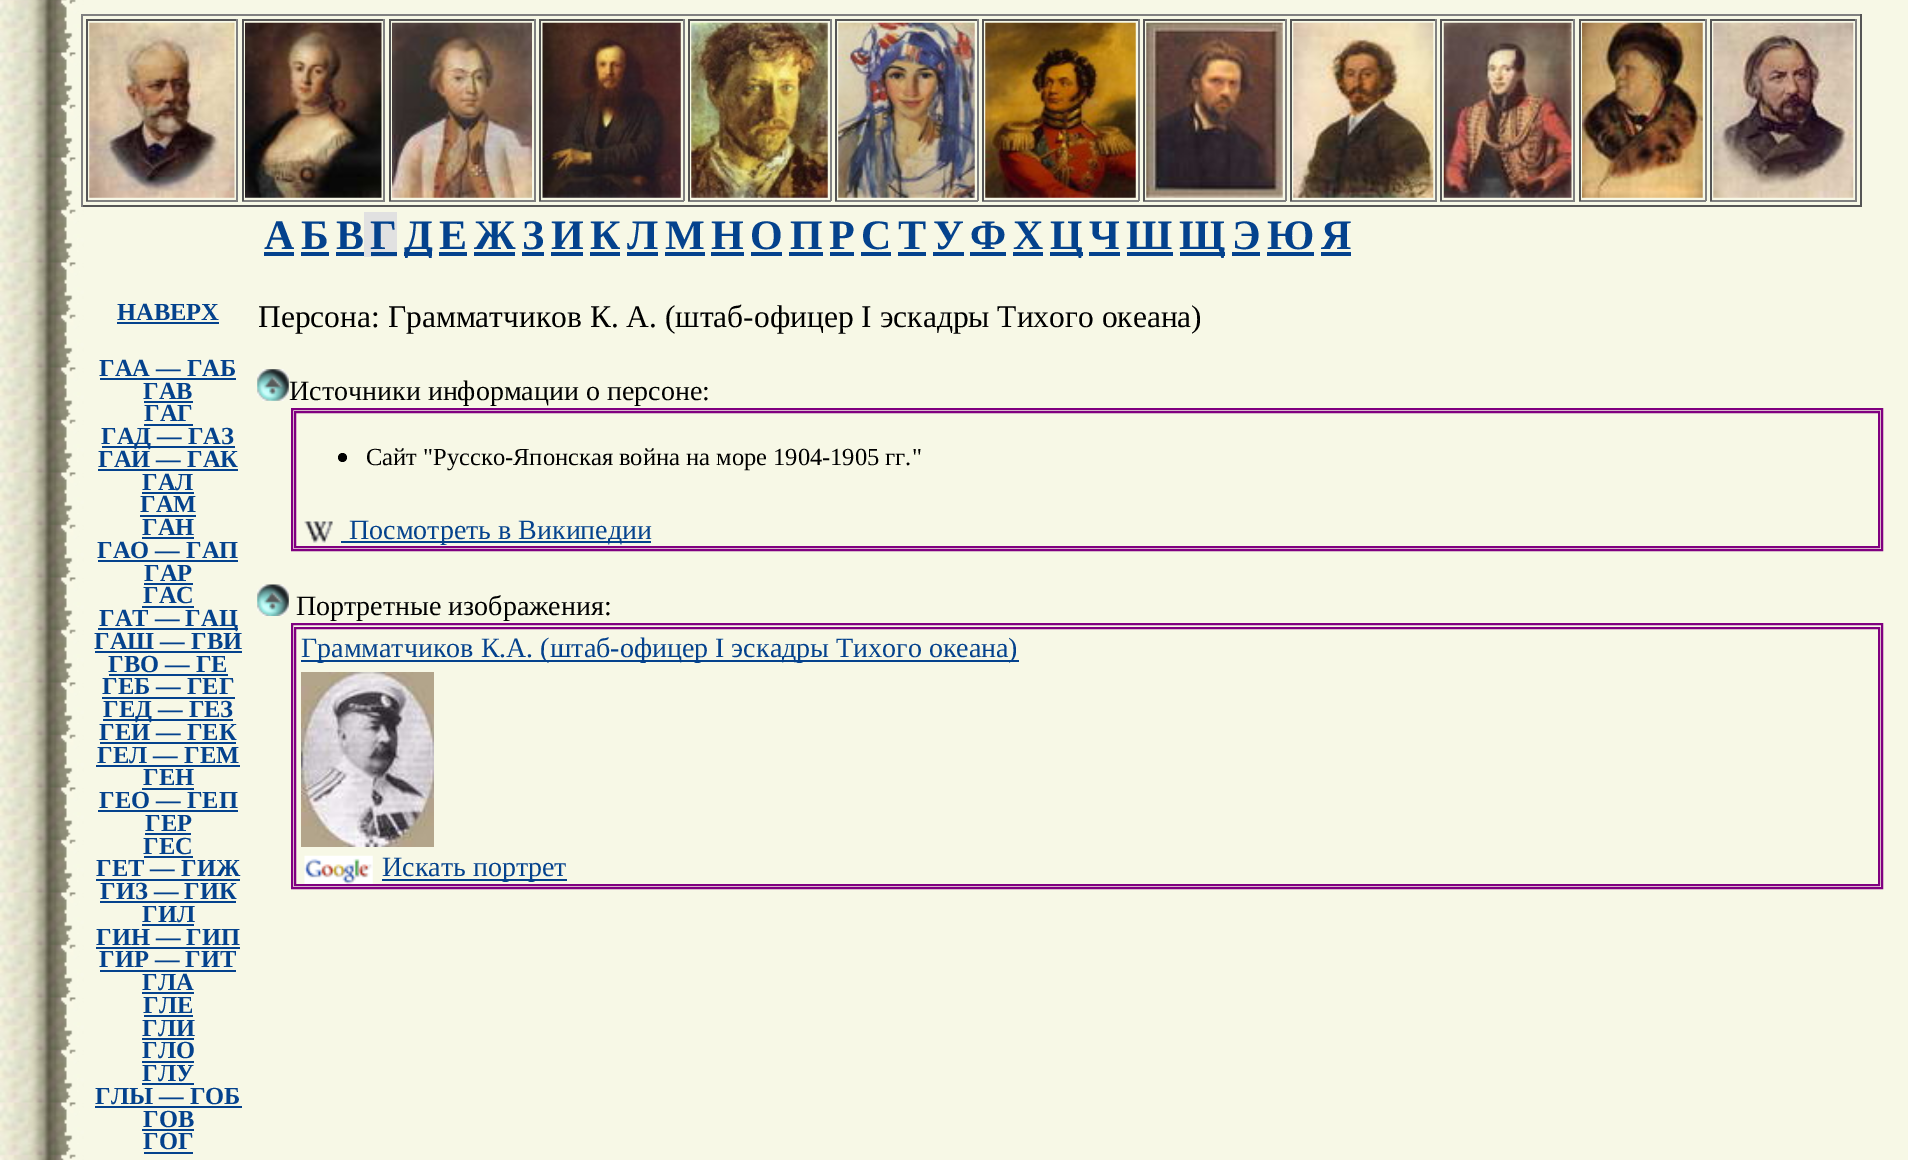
%!PS
<< /PageSize [1908 1160] >> setpagedevice
/rgb { 3 { 255 div 3 1 roll } repeat setrgbcolor } def
/font { [ exch dup neg 0 0 3 -1 roll 0 0 ] selectfont } def
/circle { newpath 0 360 arc closepath } def
/picture { 5 dict begin { /h /w /y /x /name } { exch def } forall
  gsave x y translate w h scale
  w h 8 [w 0 0 h 0 0] name (r) file false 3 colorimage grestore end } def
0 1160 translate 1 -1 scale
4 setmiterlimit
255 255 255 rgb
0 0 1908 1160 rectfill
(img/1.rgb) 0 0 1908 1160 picture
[
  [81 14 1781 2 128 128 128]
  [1860 14 2 193 85 85 85]
  [81 205 1781 2 85 85 85]
  [81 14 2 193 128 128 128]
  [86 19 152 2 85 85 85]
  [236 19 2 182 128 128 128]
  [86 200 152 2 128 128 128]
  [86 19 2 182 85 85 85]
] { aload pop rgb rectfill } forall
(img/2.rgb) 89 22 146 176 picture
[
  [242 19 143 2 85 85 85]
  [383 19 2 182 128 128 128]
  [242 200 143 2 128 128 128]
  [242 19 2 182 85 85 85]
] { aload pop rgb rectfill } forall
(img/3.rgb) 245 22 137 176 picture
[
  [389 19 147 2 85 85 85]
  [534 19 2 182 128 128 128]
  [389 200 147 2 128 128 128]
  [389 19 2 182 85 85 85]
] { aload pop rgb rectfill } forall
(img/4.rgb) 392 22 140 176 picture
[
  [539 19 145 2 85 85 85]
  [683 19 2 182 128 128 128]
  [539 200 145 2 128 128 128]
  [539 19 2 182 85 85 85]
] { aload pop rgb rectfill } forall
(img/5.rgb) 542 22 139 176 picture
[
  [688 19 143 2 85 85 85]
  [830 19 2 182 128 128 128]
  [688 200 143 2 128 128 128]
  [688 19 2 182 85 85 85]
] { aload pop rgb rectfill } forall
(img/6.rgb) 691 22 137 176 picture
[
  [835 19 143 2 85 85 85]
  [977 19 2 182 128 128 128]
  [835 200 143 2 128 128 128]
  [835 19 2 182 85 85 85]
] { aload pop rgb rectfill } forall
(img/7.rgb) 838 22 137 176 picture
[
  [982 19 157 2 85 85 85]
  [1138 19 2 182 128 128 128]
  [982 200 157 2 128 128 128]
  [982 19 2 182 85 85 85]
] { aload pop rgb rectfill } forall
(img/8.rgb) 985 22 151 176 picture
[
  [1143 19 143 2 85 85 85]
  [1285 19 2 182 128 128 128]
  [1143 200 143 2 128 128 128]
  [1143 19 2 182 85 85 85]
] { aload pop rgb rectfill } forall
(img/9.rgb) 1146 22 137 176 picture
[
  [1290 19 147 2 85 85 85]
  [1435 19 2 182 128 128 128]
  [1290 200 147 2 128 128 128]
  [1290 19 2 182 85 85 85]
] { aload pop rgb rectfill } forall
(img/10.rgb) 1293 22 141 176 picture
[
  [1440 19 135 2 85 85 85]
  [1573 19 2 182 128 128 128]
  [1440 200 135 2 128 128 128]
  [1440 19 2 182 85 85 85]
] { aload pop rgb rectfill } forall
(img/11.rgb) 1443 22 129 176 picture
[
  [1579 19 127 2 85 85 85]
  [1705 19 2 182 128 128 128]
  [1579 200 127 2 128 128 128]
  [1579 19 2 182 85 85 85]
] { aload pop rgb rectfill } forall
(img/12.rgb) 1582 22 121 176 picture
[
  [1710 19 147 2 85 85 85]
  [1855 19 2 182 128 128 128]
  [1710 200 147 2 128 128 128]
  [1710 19 2 182 85 85 85]
] { aload pop rgb rectfill } forall
(img/13.rgb) 1713 22 141 176 picture
[
  [264 252 30 4 4 66 141]
  [301 252 28 4 4 66 141]
  [336 252 28 4 4 66 141]
  [364 212 33 45 225 225 225]
  [371 252 26 4 4 66 141]
  [404 252 28 4 4 66 141]
  [439 252 28 4 4 66 141]
  [474 252 41 4 4 66 141]
  [522 252 22 4 4 66 141]
  [551 252 32 4 4 66 141]
  [590 252 30 4 4 66 141]
  [627 252 31 4 4 66 141]
  [665 252 40 4 4 66 141]
  [711 252 33 4 4 66 141]
  [751 252 31 4 4 66 141]
  [789 252 34 4 4 66 141]
  [830 252 24 4 4 66 141]
  [861 252 30 4 4 66 141]
  [898 252 28 4 4 66 141]
  [933 252 31 4 4 66 141]
  [970 252 36 4 4 66 141]
  [1013 252 30 4 4 66 141]
  [1050 252 33 4 4 66 141]
  [1089 252 31 4 4 66 141]
  [1127 252 46 4 4 66 141]
  [1180 252 45 4 4 66 141]
  [1232 252 28 4 4 66 141]
  [1267 252 47 4 4 66 141]
  [1321 252 30 4 4 66 141]
  [117 322 102 2 4 66 141]
  [100 378 136 2 4 66 141]
  [144 401 49 2 4 66 141]
  [144 424 49 2 4 66 141]
  [102 446 133 2 4 66 141]
  [98 469 140 2 4 66 141]
  [142 492 52 2 4 66 141]
  [140 515 56 2 4 66 141]
  [142 537 52 2 4 66 141]
  [98 560 140 2 4 66 141]
  [144 583 49 2 4 66 141]
  [142 606 52 2 4 66 141]
  [98 628 140 2 4 66 141]
  [95 651 147 2 4 66 141]
  [109 674 119 2 4 66 141]
  [102 697 133 2 4 66 141]
  [103 719 130 2 4 66 141]
  [100 742 136 2 4 66 141]
  [96 765 144 2 4 66 141]
  [142 788 52 2 4 66 141]
  [98 810 140 2 4 66 141]
  [145 833 46 2 4 66 141]
  [144 856 49 2 4 66 141]
  [96 879 144 2 4 66 141]
  [100 901 136 2 4 66 141]
  [142 924 52 2 4 66 141]
  [96 947 144 2 4 66 141]
  [100 970 136 2 4 66 141]
  [142 992 52 2 4 66 141]
  [144 1015 49 2 4 66 141]
  [142 1038 52 2 4 66 141]
  [142 1061 52 2 4 66 141]
  [142 1083 52 2 4 66 141]
  [95 1106 147 2 4 66 141]
  [142 1129 52 2 4 66 141]
  [144 1152 49 2 4 66 141]
] { aload pop rgb rectfill } forall
(img/14.rgb) 257 369 32 32 picture
128 0 128 rgb
2 setlinewidth
292 409 1590 141 rectstroke
295 412 1584 135 rectstroke
0 0 0 rgb
342.5 457.5 4.5 circle fill
(img/15.rgb) 304 521 29 22 picture
4 66 141 rgb
341 541 310 2 rectfill
(img/16.rgb) 257 584 32 32 picture
128 0 128 rgb
292 624 1590 264 rectstroke
295 628 1584 257 rectstroke
4 66 141 rgb
301 660 718 2 rectfill
(img/17.rgb) 301 672 133 175 picture
(img/18.rgb) 304 855 69 29 picture
382 879 185 2 rectfill
/LiberationSerif-Bold 42 font
[
  [(А) 264 249]
  [(Б) 301 249]
  [(В) 336 249]
  [(Г) 370 249]
  [(Д) 404 249]
  [(Е) 439 249]
  [(Ж) 474 249]
  [(З) 522 249]
  [(И) 551 249]
  [(К) 590 249]
  [(Л) 627 249]
  [(М) 665 249]
  [(Н) 711 249]
  [(О) 750 249]
  [(П) 790 249]
  [(Р) 829 249]
  [(С) 861 249]
  [(Т) 898 249]
  [(У) 933 249]
  [(Ф) 970 249]
  [(Х) 1013 249]
  [(Ц) 1050 249]
  [(Ч) 1089 249]
  [(Ш) 1126 249]
  [(Щ) 1179 249]
  [(Э) 1232 249]
  [(Ю) 1267 249]
  [(Я) 1321 249]
] { aload pop moveto show } forall
/LiberationSerif-Bold 24.5 font
[
  [(НАВЕРХ) 117 320]
  [(ГАА — ГАБ) 99 376]
  [(ГАВ) 143 399]
  [(ГАГ) 144 421]
  [(ГАД — ГАЗ) 101 444]
  [(ГАИ — ГАК) 98 467]
  [(ГАЛ) 142 490]
  [(ГАМ) 140 512]
  [(ГАН) 142 535]
  [(ГАО — ГАП) 97 558]
  [(ГАР) 144 581]
  [(ГАС) 143 603]
  [(ГАТ — ГАЦ) 99 626]
  [(ГАШ — ГВИ) 94 649]
  [(ГВО — ГЕ) 108 672]
  [(ГЕБ — ГЕГ) 102 694]
  [(ГЕД — ГЕЗ) 103 717]
  [(ГЕИ — ГЕК) 99 740]
  [(ГЕЛ — ГЕМ) 97 763]
  [(ГЕН) 143 785]
  [(ГЕО — ГЕП) 99 808]
  [(ГЕР) 145 831]
  [(ГЕС) 143 854]
  [(ГЕТ — ГИЖ) 96 876]
  [(ГИЗ — ГИК) 100 899]
  [(ГИЛ) 142 922]
  [(ГИН — ГИП) 96 945]
  [(ГИР — ГИТ) 99 967]
  [(ГЛА) 142 990]
  [(ГЛЕ) 143 1013]
  [(ГЛИ) 142 1036]
  [(ГЛО) 142 1058]
  [(ГЛУ) 142 1081]
  [(ГЛЫ — ГОБ) 95 1104]
  [(ГОВ) 143 1127]
  [(ГОГ) 143 1149]
] { aload pop moveto show } forall
/LiberationSerif-Regular 31.5 font
0 0 0 rgb
258 327 moveto (Персона: Грамматчиков К. А. \(штаб-офицер I эскадры Тихого океана\)) show
/LiberationSerif-Regular 28 font
289 400 moveto (Источники информации о персоне:) show
/LiberationSerif-Regular 24.5 font
366 465 moveto (Сайт "Русско-Японская война на море 1904-1905 гг.") show
/LiberationSerif-Regular 28 font
4 66 141 rgb
349 539 moveto (Посмотреть в Википедии) show
0 0 0 rgb
296 615 moveto (Портретные изображения:) show
4 66 141 rgb
301 657 moveto (Грамматчиков К.А. \(штаб-офицер I эскадры Тихого океана\)) show
382 876 moveto (Искать портрет) show
showpage
